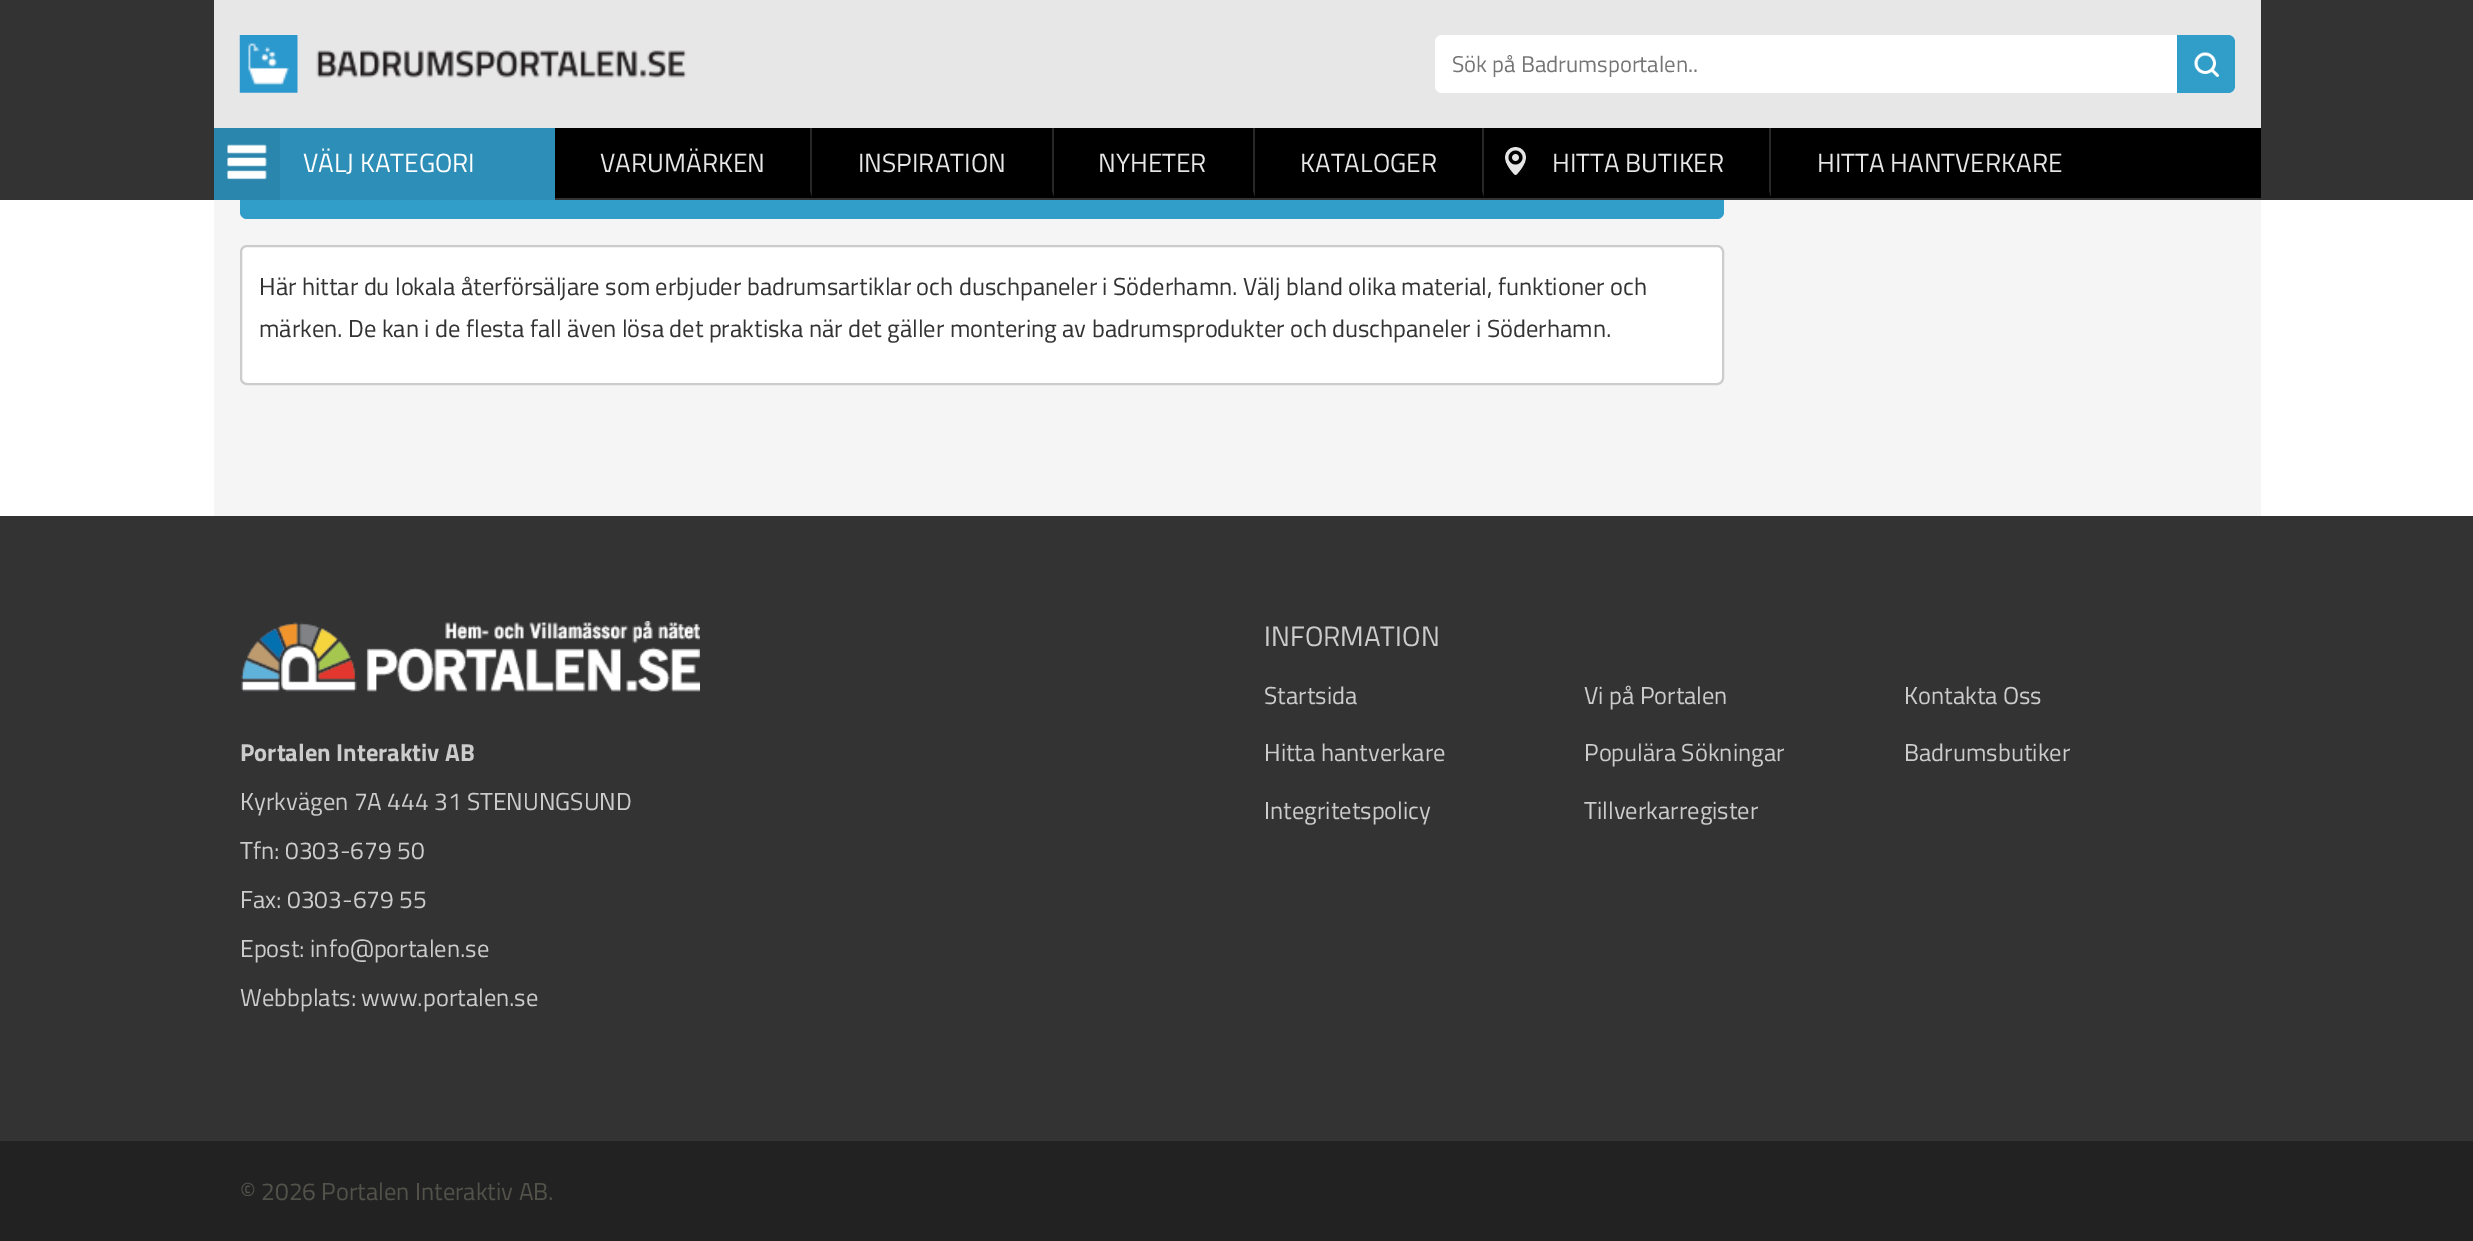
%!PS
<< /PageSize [2473 1241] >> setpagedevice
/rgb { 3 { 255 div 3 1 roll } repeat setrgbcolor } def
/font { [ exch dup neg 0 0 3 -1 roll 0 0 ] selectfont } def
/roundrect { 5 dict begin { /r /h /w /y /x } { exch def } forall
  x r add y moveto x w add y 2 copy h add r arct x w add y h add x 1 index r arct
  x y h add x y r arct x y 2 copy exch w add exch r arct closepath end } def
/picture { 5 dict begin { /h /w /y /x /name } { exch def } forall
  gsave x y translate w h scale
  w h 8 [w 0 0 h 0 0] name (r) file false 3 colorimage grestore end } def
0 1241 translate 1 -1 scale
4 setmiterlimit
255 255 255 rgb
0 0 2473 1241 rectfill
245 245 245 rgb
214 200 2047 316 rectfill
49 157 201 rgb
240 156 1484 63 7 roundrect fill
51 51 51 rgb
0 0 2473 200 rectfill
231 231 231 rgb
214 0 2047 128 rectfill
(img/1.rgb) 239 35 448 58 picture
255 255 255 rgb
1435 35 800 58 7 roundrect fill
49 157 201 rgb
2177 35 moveto 2228 35 lineto 2232 35 2235 38 2235 42 curveto 2235 86 lineto 2235 90 2232 93 2228 93 curveto 2177 93 lineto closepath fill
(img/2.rgb) 2194 52 25 25 picture
45 143 183 rgb
280 128 275 72 rectfill
42 134 172 rgb
214 128 66 72 rectfill
(img/3.rgb) 227 144 40 36 picture
0 0 0 rgb
555 128 1706 70 rectfill
40 40 40 rgb
812 128 moveto 812 198 lineto 810 192 lineto 810 128 lineto closepath fill
0 0 0 rgb
812 198 moveto 555 198 lineto 555 192 lineto 810 192 lineto closepath fill
40 40 40 rgb
1054 128 moveto 1054 198 lineto 1052 192 lineto 1052 128 lineto closepath fill
0 0 0 rgb
1054 198 moveto 812 198 lineto 812 192 lineto 1052 192 lineto closepath fill
40 40 40 rgb
1255 128 moveto 1255 198 lineto 1253 192 lineto 1253 128 lineto closepath fill
0 0 0 rgb
1255 198 moveto 1054 198 lineto 1054 192 lineto 1253 192 lineto closepath fill
40 40 40 rgb
1484 128 moveto 1484 198 lineto 1482 192 lineto 1482 128 lineto closepath fill
0 0 0 rgb
1484 198 moveto 1255 198 lineto 1255 192 lineto 1482 192 lineto closepath fill
(img/4.rgb) 1505 147 21 28 picture
40 40 40 rgb
1771 128 moveto 1771 198 lineto 1769 192 lineto 1769 128 lineto closepath fill
0 0 0 rgb
1771 198 moveto 1484 198 lineto 1484 192 lineto 1769 192 lineto closepath fill
255 255 255 rgb
241 246 1482 138 6 roundrect gsave fill grestore
204 204 204 rgb
2 setlinewidth
stroke
51 51 51 rgb
0 516 2473 625 rectfill
(img/5.rgb) 241 621 459 71 picture
34 34 34 rgb
0 1141 2473 100 rectfill
gsave
1453 46 764 35 rectclip
/TitilliumWeb-Regular 22.75 font
117 117 117 rgb
1452 72 moveto (Sök på Badrumsportalen..) show
grestore
/TitilliumWeb-Regular 26.25 font
255 255 255 rgb
303 172 moveto (VÄLJ KATEGORI) show
230 230 230 rgb
[
  [(VARUMÄRKEN) 600 172]
  [(INSPIRATION) 858 172]
  [(NYHETER) 1098 172]
  [(KATALOGER) 1300 172]
  [(HITTA BUTIKER) 1552 172]
  [(HITTA HANTVERKARE) 1817 172]
] { aload pop moveto show } forall
/TitilliumWeb-Regular 24.5 font
51 51 51 rgb
259 295 moveto (Här hittar du lokala återförsäljare som erbjuder badrumsartiklar och duschpaneler i Söderhamn. Välj bland olika material, funktioner och) show
259 337 moveto (märken. De kan i de flesta fall även lösa det praktiska när det gäller montering av badrumsprodukter och duschpaneler i Söderhamn.) show
/TitilliumWeb-Bold 24.5 font
204 204 204 rgb
240 761 moveto (Portalen Interaktiv AB) show
/TitilliumWeb-Regular 24.5 font
[
  [(Kyrkvägen 7A 444 31 STENUNGSUND) 240 810]
  [(Tfn: 0303-679 50) 240 859]
  [(Fax: 0303-679 55) 240 908]
  [(Epost: info@portalen.se) 240 957]
  [(Webbplats: www.portalen.se) 240 1006]
] { aload pop moveto show } forall
/TitilliumWeb-Regular 28 font
1264 646 moveto (INFORMATION) show
/TitilliumWeb-Regular 24.5 font
[
  [(Startsida) 1264 704]
  [(Vi på Portalen) 1584 704]
  [(Kontakta Oss) 1904 704]
  [(Hitta hantverkare) 1264 761]
  [(Populära Sökningar) 1584 761]
  [(Badrumsbutiker) 1904 761]
  [(Integritetspolicy) 1264 819]
  [(Tillverkarregister) 1584 819]
] { aload pop moveto show } forall
82 82 74 rgb
240 1200 moveto (© 2026 Portalen Interaktiv AB.) show
showpage
